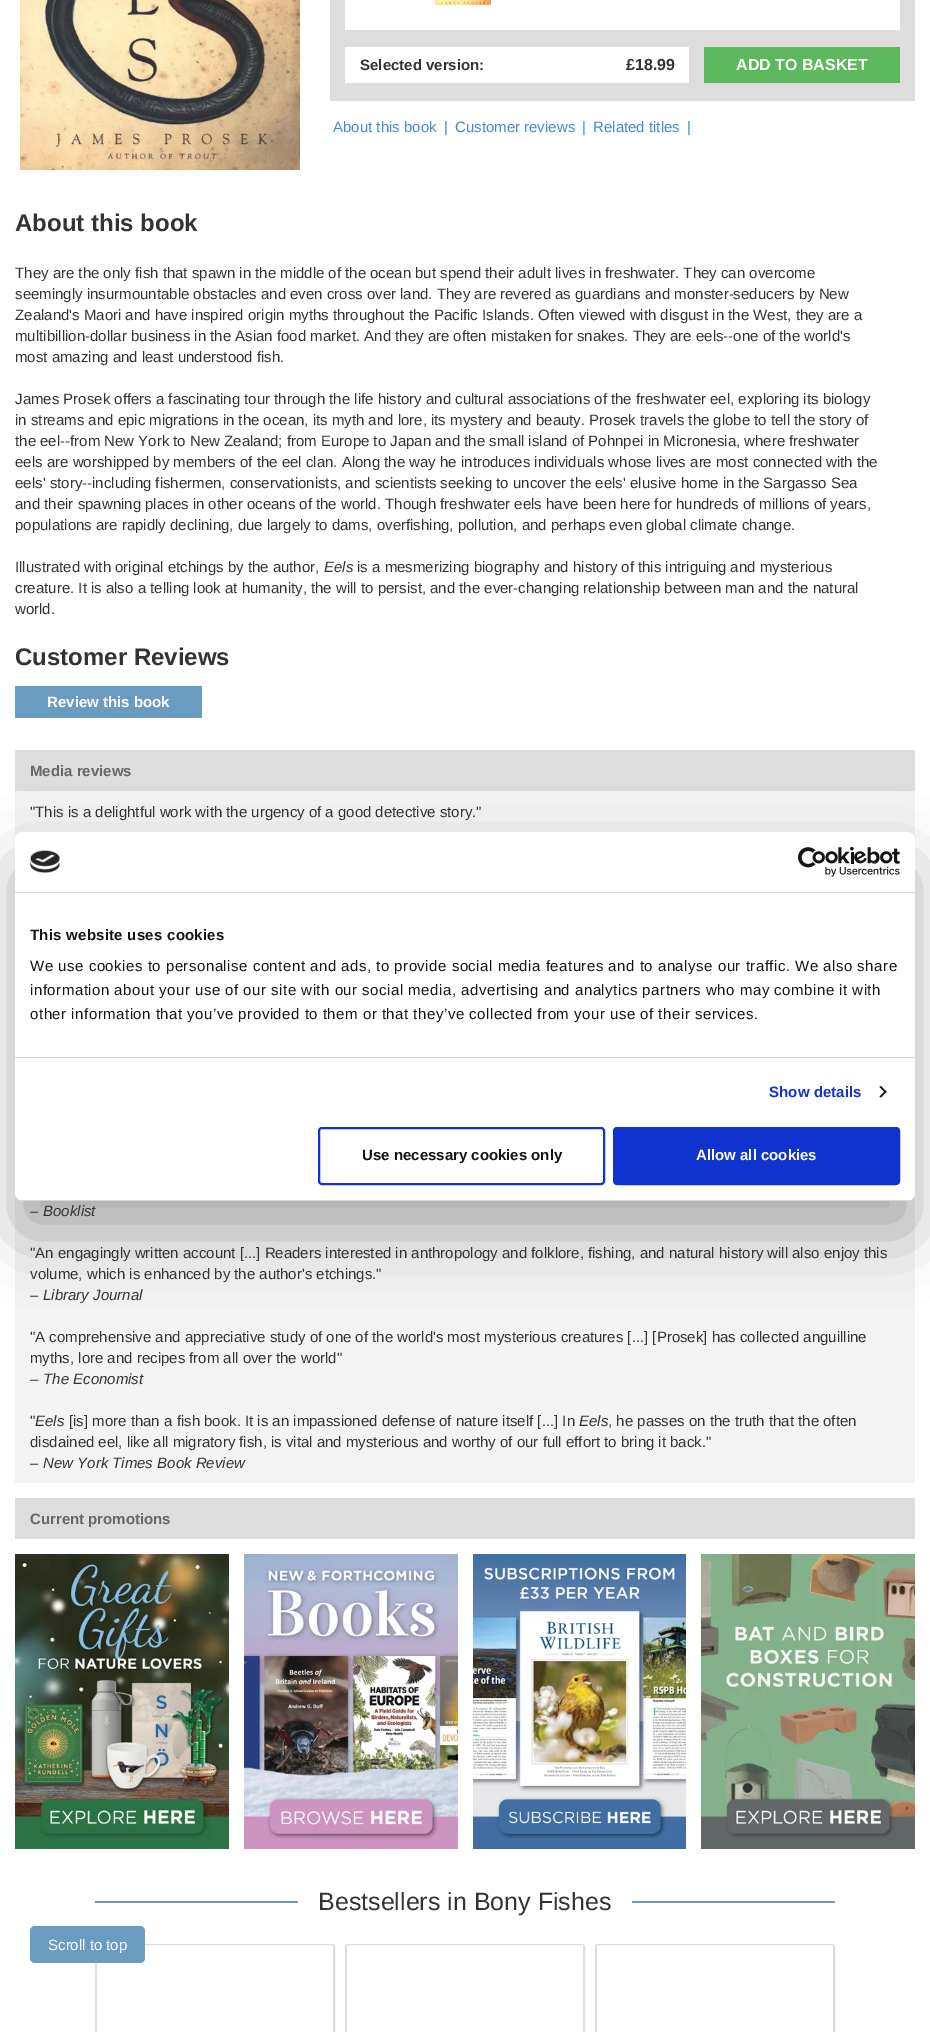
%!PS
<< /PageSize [930 2032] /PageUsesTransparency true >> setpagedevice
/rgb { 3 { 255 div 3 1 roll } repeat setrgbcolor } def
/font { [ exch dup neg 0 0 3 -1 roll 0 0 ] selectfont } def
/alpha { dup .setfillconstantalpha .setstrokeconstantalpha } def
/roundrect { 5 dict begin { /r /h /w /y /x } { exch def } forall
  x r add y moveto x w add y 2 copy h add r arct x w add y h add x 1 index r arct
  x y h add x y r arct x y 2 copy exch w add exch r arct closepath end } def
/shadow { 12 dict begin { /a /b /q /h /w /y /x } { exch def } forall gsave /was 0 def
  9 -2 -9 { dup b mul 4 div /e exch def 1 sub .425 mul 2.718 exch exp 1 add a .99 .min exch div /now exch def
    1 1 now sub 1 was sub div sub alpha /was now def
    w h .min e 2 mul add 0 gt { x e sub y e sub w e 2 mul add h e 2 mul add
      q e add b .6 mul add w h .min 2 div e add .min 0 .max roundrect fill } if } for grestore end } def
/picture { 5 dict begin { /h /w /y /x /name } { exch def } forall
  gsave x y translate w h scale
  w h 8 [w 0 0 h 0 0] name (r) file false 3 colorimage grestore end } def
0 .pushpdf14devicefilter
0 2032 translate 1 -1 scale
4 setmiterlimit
255 255 255 rgb
0 0 930 2032 rectfill
(img/1.rgb) 20 0 280 170 picture
221 221 221 rgb
330 0 585 101 rectfill
255 255 255 rgb
345 0 555 30 rectfill
(img/2.rgb) 435 0 56 5 picture
[
  [345 47 344 36 255 255 255]
  [704 47 196 36 92 184 92]
  [15 686 187 32 106 156 193]
  [15 750 900 41 221 221 221]
  [15 791 900 692 243 243 243]
  [15 1498 900 41 221 221 221]
] { aload pop rgb rectfill } forall
(img/3.rgb) 15 1554 214 295 picture
(img/4.rgb) 244 1554 214 295 picture
(img/5.rgb) 473 1554 213 295 picture
(img/6.rgb) 701 1554 214 295 picture
106 156 193 rgb
95 1901 203 2 rectfill
632 1901 203 2 rectfill
221 221 221 rgb
95.5 1944.5 239 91 2.5 roundrect stroke
333 1946 1 86 rectfill
96 1963 1 69 rectfill
345.5 1944.5 239 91 2.5 roundrect stroke
583 1946 1 86 rectfill
346 1946 1 86 rectfill
595.5 1944.5 239 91 2.5 roundrect stroke
833 1946 1 86 rectfill
596 1946 1 86 rectfill
0 0 0 rgb
15 864 900 369 8 34 0.3 shadow
255 255 255 rgb
15 832 900 369 8 roundrect fill
214 214 214 rgb
15 892 900 1 rectfill
(img/7.rgb) 30 850 30 23 picture
(img/8.rgb) 798 847 102 30 picture
15 1057 900 1 rectfill
20 20 20 rgb
881 1086 moveto 886.5 1092 lineto 885.5 1093 lineto 879.5 1087 lineto closepath fill
885.5 1090.5 moveto 886.5 1092 lineto 881 1097.5 lineto 879.5 1096.5 lineto closepath fill
gsave
15 832 900 369 8 roundrect clip newpath
214 214 214 rgb
15 1200 900 1 rectfill
grestore
16 50 207 rgb
2 setlinewidth
319 1128 285 56 3 roundrect stroke
614 1128 285 56 3 roundrect gsave fill grestore
stroke
106 156 193 rgb
30 1926 115 37 5 roundrect fill
/LiberationSans-Bold 15 font
51 51 51 rgb
360 70 moveto (Selected version:) show
/LiberationSans-Bold 16 font
626 70 moveto (£18.99) show
255 255 255 rgb
736 70 moveto (ADD TO BASKET) show
/LiberationSans-Regular 15 font
66 139 202 rgb
[
  [(About this book) 333 132]
  [(|) 444 132]
  [(Customer reviews) 455 132]
  [(|) 582 132]
  [(Related titles) 593 132]
  [(|) 687 132]
] { aload pop moveto show } forall
/LiberationSans-Bold 24 font
51 51 51 rgb
15 231 moveto (About this book) show
/LiberationSans-Regular 15 font
[
  [(They are the only fish that spawn in the middle of the ocean but spend their adult lives in freshwater. They can overcome) 15 278]
  [(seemingly insurmountable obstacles and even cross over land. They are revered as guardians and monster-seducers by New) 15 299]
  [(Zealand's Maori and have inspired origin myths throughout the Pacific Islands. Often viewed with disgust in the West, they are a) 15 320]
  [(multibillion-dollar business in the Asian food market. And they are often mistaken for snakes. They are eels--one of the world's) 15 341]
  [(most amazing and least understood fish.) 15 362]
  [(James Prosek offers a fascinating tour through the life history and cultural associations of the freshwater eel, exploring its biology) 15 404]
  [(in streams and epic migrations in the ocean, its myth and lore, its mystery and beauty. Prosek travels the globe to tell the story of) 15 425]
  [(the eel--from New York to New Zealand; from Europe to Japan and the small island of Pohnpei in Micronesia, where freshwater) 15 446]
  [(eels are worshipped by members of the eel clan. Along the way he introduces individuals whose lives are most connected with the) 15 467]
  [(eels' story--including fishermen, conservationists, and scientists seeking to uncover the eels' elusive home in the Sargasso Sea) 15 488]
  [(and their spawning places in other oceans of the world. Though freshwater eels have been here for hundreds of millions of years,) 15 509]
  [(populations are rapidly declining, due largely to dams, overfishing, pollution, and perhaps even global climate change.) 15 530]
  [(Illustrated with original etchings by the author,) 15 572]
] { aload pop moveto show } forall
/LiberationSans-Italic 15 font
324 572 moveto (Eels) show
/LiberationSans-Regular 15 font
[
  [(is a mesmerizing biography and history of this intriguing and mysterious) 357 572]
  [(creature. It is also a telling look at humanity, the will to persist, and the ever-changing relationship between man and the natural) 15 593]
  [(world.) 15 614]
] { aload pop moveto show } forall
/LiberationSans-Bold 24 font
15 665 moveto (Customer Reviews) show
/LiberationSans-Bold 15 font
255 255 255 rgb
47 707 moveto (Review this book) show
102 102 102 rgb
30 776 moveto (Media reviews) show
/LiberationSans-Regular 15 font
51 51 51 rgb
30 817 moveto ("This is a delightful work with the urgency of a good detective story.") show
30 1216 moveto (–) show
/LiberationSans-Italic 15 font
43 1216 moveto (Booklist) show
/LiberationSans-Regular 15 font
[
  [("An engagingly written account [...] Readers interested in anthropology and folklore, fishing, and natural history will also enjoy this) 30 1258]
  [(volume, which is enhanced by the author's etchings.") 30 1279]
  [(–) 30 1300]
] { aload pop moveto show } forall
/LiberationSans-Italic 15 font
43 1300 moveto (Library Journal) show
/LiberationSans-Regular 15 font
[
  [("A comprehensive and appreciative study of one of the world's most mysterious creatures [...] [Prosek] has collected anguilline) 30 1342]
  [(myths, lore and recipes from all over the world") 30 1363]
  [(–) 30 1384]
] { aload pop moveto show } forall
/LiberationSans-Italic 15 font
43 1384 moveto (The Economist) show
/LiberationSans-Regular 15 font
30 1426 moveto (") show
/LiberationSans-Italic 15 font
35 1426 moveto (Eels) show
/LiberationSans-Regular 15 font
69 1426 moveto ([is] more than a fish book. It is an impassioned defense of nature itself [...] In) show
/LiberationSans-Italic 15 font
579 1426 moveto (Eels) show
/LiberationSans-Regular 15 font
[
  [(, he passes on the truth that the often) 608 1426]
  [(disdained eel, like all migratory fish, is vital and mysterious and worthy of our full effort to bring it back.") 30 1447]
  [(–) 30 1468]
] { aload pop moveto show } forall
/LiberationSans-Italic 15 font
43 1468 moveto (New York Times Book Review) show
/LiberationSans-Bold 15 font
102 102 102 rgb
30 1524 moveto (Current promotions) show
/LiberationSans-Regular 25 font
51 51 51 rgb
318 1910 moveto (Bestsellers in Bony Fishes) show
/LiberationSans-Bold 15 font
20 20 20 rgb
30 940 moveto 0.25 0 (This website uses cookies) ashow
/LiberationSans-Regular 15 font
30 971 moveto 0.5 0 (We use cookies to personalise content and ads, to provide social media features and to analyse our traffic. We also share) ashow
30 995 moveto 0.5 0 (information about your use of our site with our social media, advertising and analytics partners who may combine it with) ashow
30 1019 moveto 0.5 0 (other information that you’ve provided to them or that they’ve collected from your use of their services.) ashow
/LiberationSans-Bold 15 font
16 50 207 rgb
769 1097 moveto 0.1 0 (Show details) ashow
20 20 20 rgb
362 1160 moveto (Use necessary cookies only) show
255 255 255 rgb
696 1160 moveto (Allow all cookies) show
/LiberationSans-Regular 15 font
48 1950 moveto (Scroll to top) show
.poppdf14devicefilter showpage
